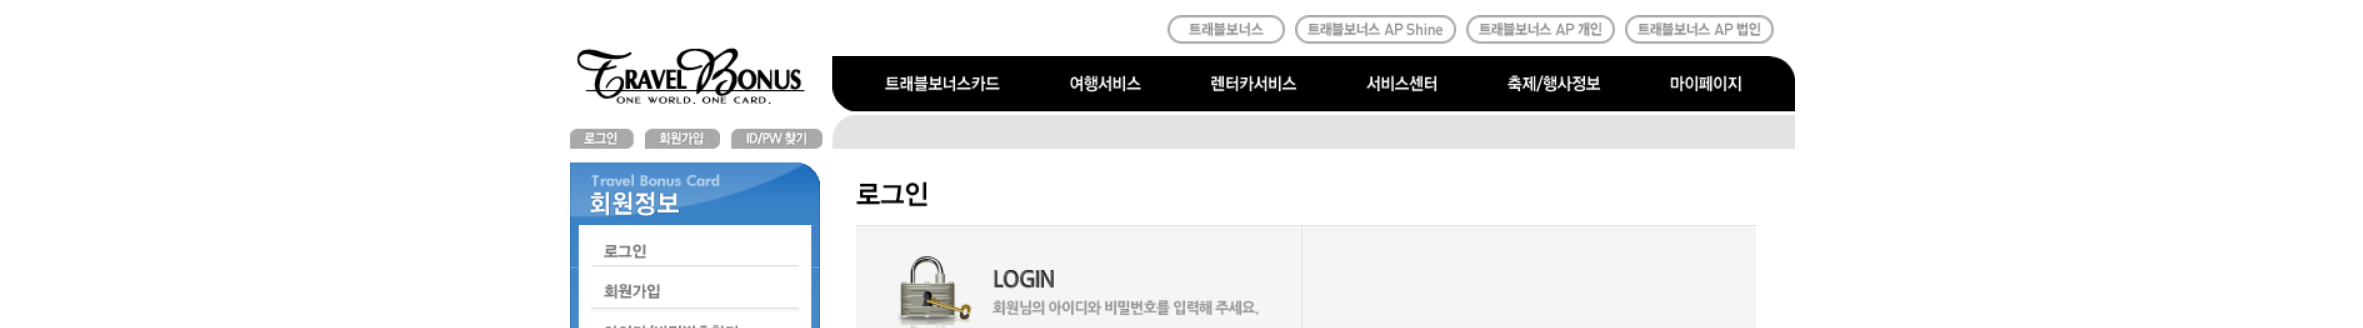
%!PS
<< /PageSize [2363 328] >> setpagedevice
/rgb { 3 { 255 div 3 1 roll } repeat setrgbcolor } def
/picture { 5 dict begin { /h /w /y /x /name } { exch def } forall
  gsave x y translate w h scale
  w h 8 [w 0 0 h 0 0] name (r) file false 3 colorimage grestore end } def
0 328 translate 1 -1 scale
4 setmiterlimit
255 255 255 rgb
0 0 2363 328 rectfill
(img/1.rgb) 1167 15 118 29 picture
(img/2.rgb) 1295 15 162 29 picture
(img/3.rgb) 1466 15 149 29 picture
(img/4.rgb) 1625 15 149 29 picture
(img/5.rgb) 576 47 229 57 picture
(img/6.rgb) 832 56 963 93 picture
(img/7.rgb) 832 56 23 38 picture
(img/8.rgb) 855 56 180 36 picture
(img/9.rgb) 1035 56 142 37 picture
(img/10.rgb) 1176 56 156 36 picture
(img/11.rgb) 1331 56 141 36 picture
(img/12.rgb) 1471 56 164 37 picture
(img/13.rgb) 1635 56 138 36 picture
(img/14.rgb) 1772 56 4 2 picture
(img/15.rgb) 570 128 64 21 picture
(img/16.rgb) 645 128 75 21 picture
(img/17.rgb) 731 128 92 21 picture
(img/18.rgb) 570 162 250 63 picture
(img/19.rgb) 570 225 250 43 picture
(img/20.rgb) 570 267 250 43 picture
(img/21.rgb) 570 310 250 18 picture
(img/22.rgb) 856 181 72 26 picture
245 245 245 rgb
856 226 900 102 rectfill
(img/23.rgb) 1301 226 2 102 picture
224 226 227 rgb
856 225 900 1 rectfill
(img/24.rgb) 897 256 362 72 picture
showpage
